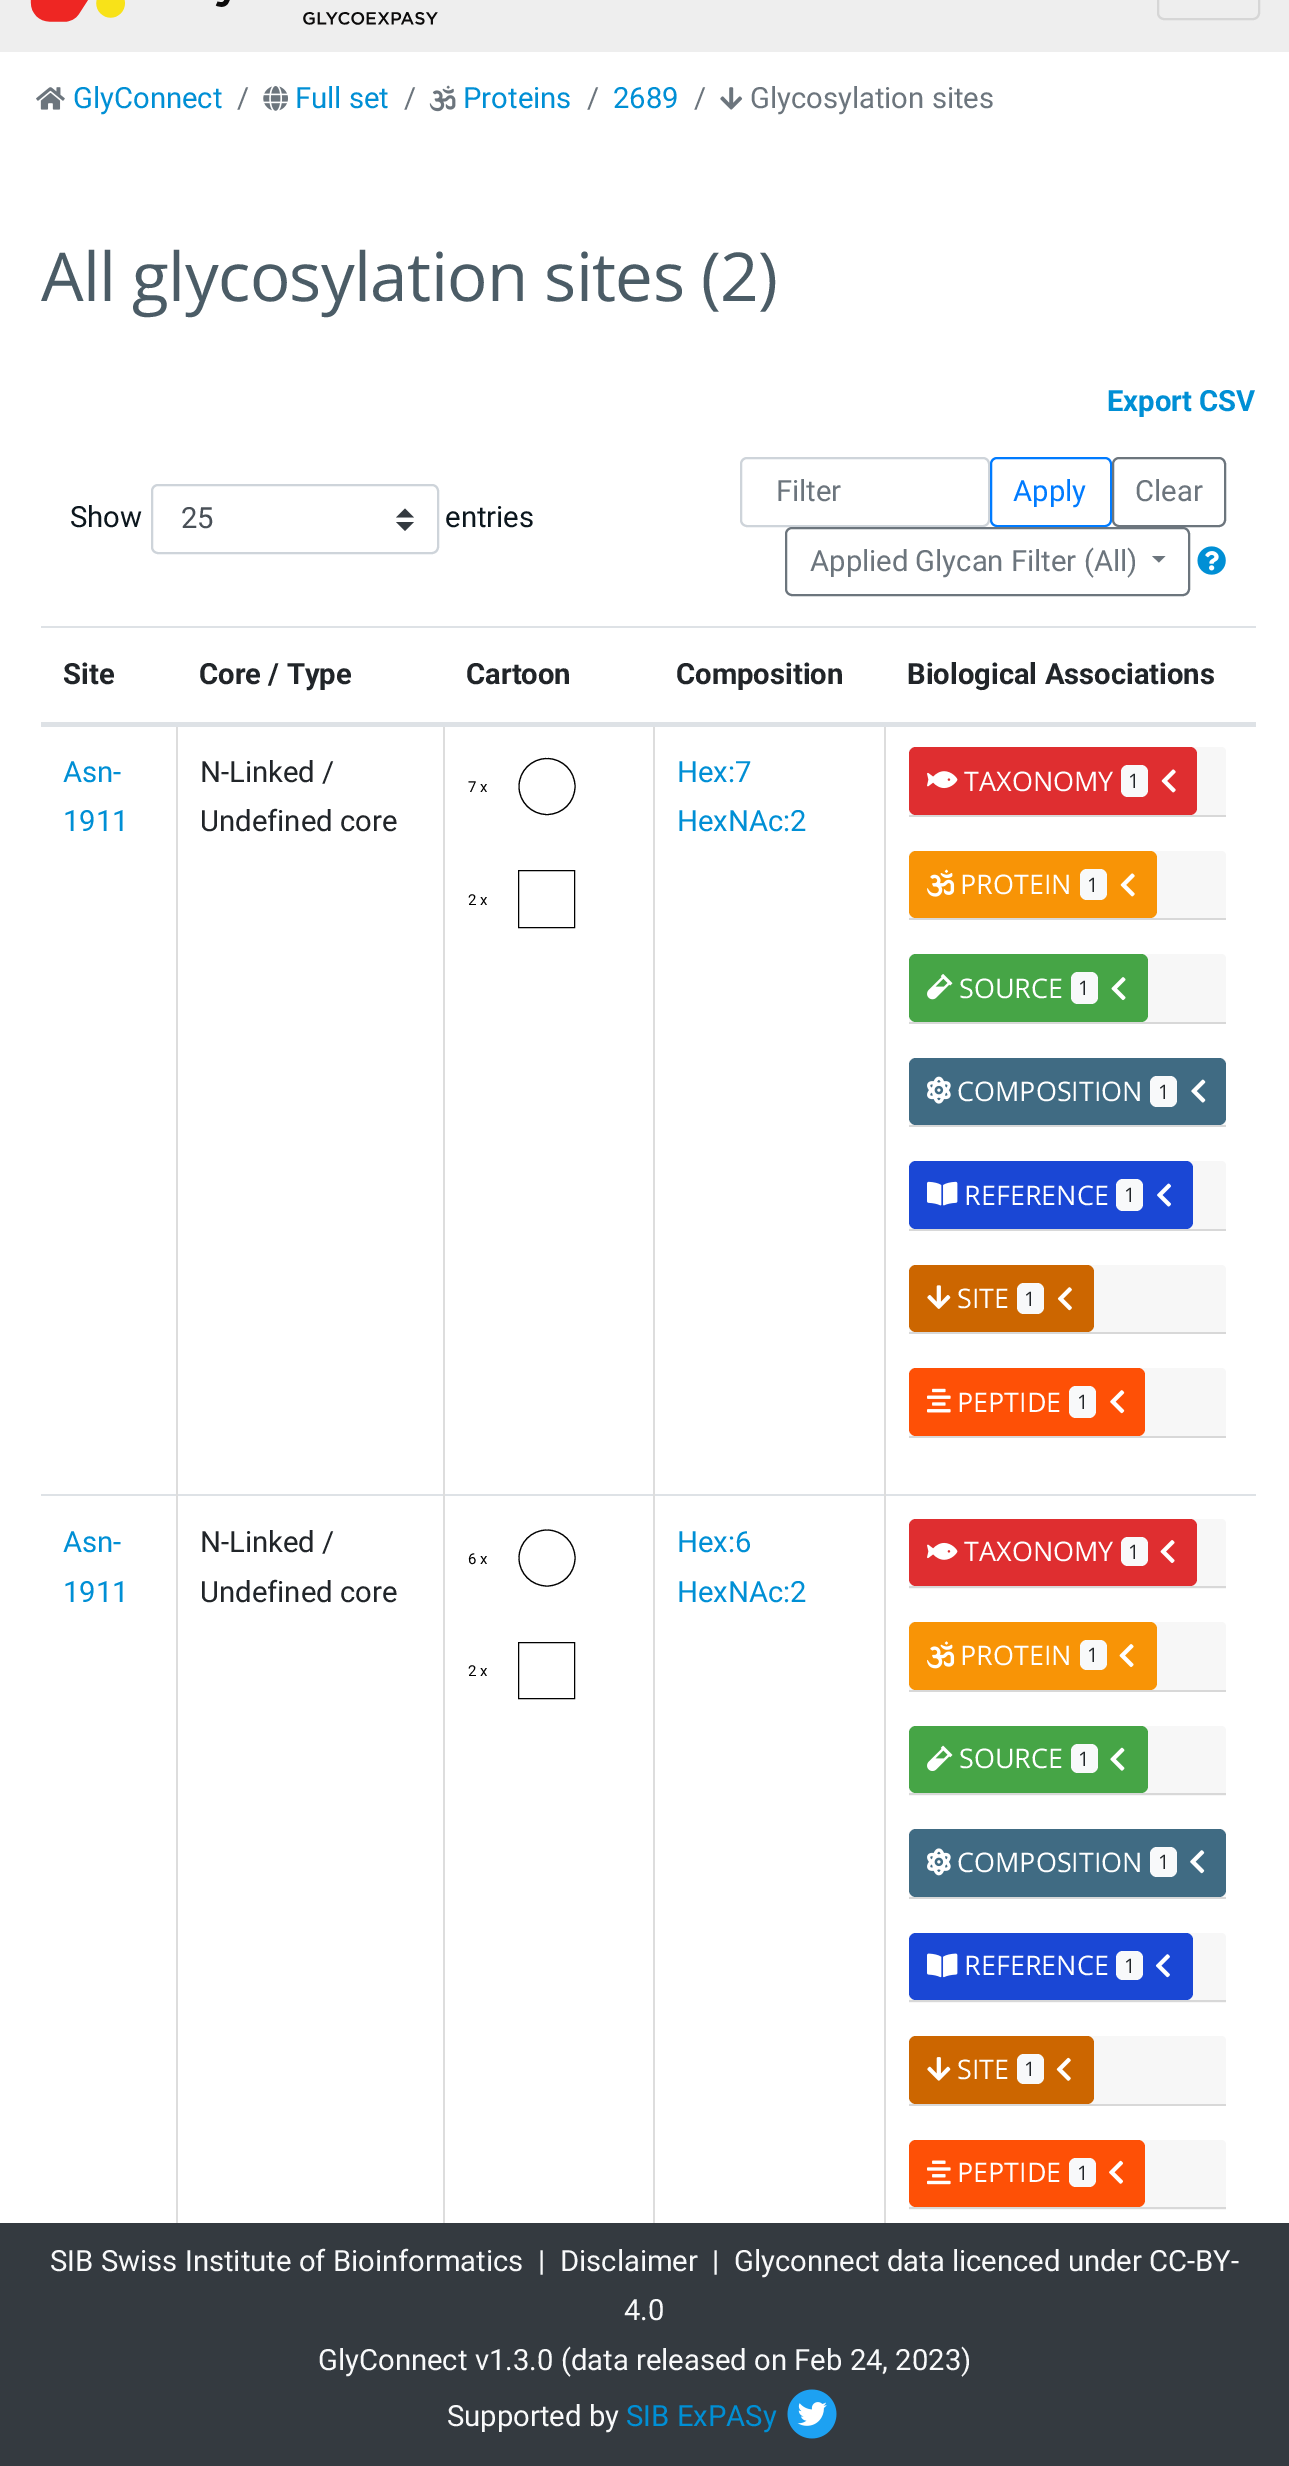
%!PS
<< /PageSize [1289 2466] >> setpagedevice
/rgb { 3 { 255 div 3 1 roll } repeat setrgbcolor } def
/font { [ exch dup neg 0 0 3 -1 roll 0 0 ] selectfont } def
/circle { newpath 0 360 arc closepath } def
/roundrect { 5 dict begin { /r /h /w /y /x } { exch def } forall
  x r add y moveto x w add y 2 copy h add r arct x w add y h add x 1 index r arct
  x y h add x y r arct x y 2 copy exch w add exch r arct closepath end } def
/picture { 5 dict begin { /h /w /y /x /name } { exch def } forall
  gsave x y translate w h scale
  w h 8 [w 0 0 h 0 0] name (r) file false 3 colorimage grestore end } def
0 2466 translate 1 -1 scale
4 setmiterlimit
255 255 255 rgb
0 0 1289 2466 rectfill
238 238 238 rgb
0 0 1289 52 rectfill
(img/1.rgb) 30 0 408 25 picture
214 214 214 rgb
2 setlinewidth
1158 -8 101 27 6 roundrect stroke
(img/2.rgb) 36 87 29 23 picture
(img/3.rgb) 263 86 25 25 picture
(img/4.rgb) 429 85 27 27 picture
(img/5.rgb) 720 87 23 23 picture
52 58 64 rgb
405 508.5 moveto 396 517.5 lineto 414 517.5 lineto closepath 405 531 moveto 396 522 lineto 414 522 lineto closepath fill
206 212 218 rgb
152 485 286 68 6 roundrect stroke
741 458 248 68 6 roundrect stroke
0 123 255 rgb
991 458 120 68 6 roundrect stroke
108 117 125 rgb
1113 458 112 68 6 roundrect stroke
786 528 403 67 6 roundrect stroke
1152 556 moveto 1165.5 556 lineto 1159 562.5 lineto closepath fill
(img/6.rgb) 1197 546 29 29 picture
[
  [41 626 1215 2 222 226 230]
  [884 1494 372 2 222 226 230]
  [884 1494 2 729 221 221 221]
  [653 1494 234 2 222 226 230]
  [653 1494 2 729 221 221 221]
  [443 1494 212 2 222 226 230]
  [443 1494 2 729 221 221 221]
  [176 1494 270 2 222 226 230]
  [176 1494 2 729 221 221 221]
  [41 1494 137 2 222 226 230]
  [176 722 2 774 221 221 221]
  [443 722 2 774 221 221 221]
  [653 722 2 774 221 221 221]
  [884 722 2 774 221 221 221]
  [41 722 1215 5 222 226 230]
] { aload pop rgb rectfill } forall
0 0 0 rgb
1.1 setlinewidth
547 786.5 28 circle stroke
1 setlinewidth
518.5 870.5 56 57 rectstroke
247 247 247 rgb
914 747 moveto 1221 747 lineto 1224 747 1226 749 1226 752 curveto 1226 817 lineto 909 817 lineto 909 752 lineto 909 749 911 747 914 747 curveto closepath fill
216 216 216 rgb
909 815 317 2 rectfill
223 46 48 rgb
909 747 288 68 7 roundrect fill
(img/7.rgb) 927 771 31 18 picture
248 249 250 rgb
1121 765 27 32 7 roundrect fill
(img/8.rgb) 1161 769 15 24 picture
247 247 247 rgb
914 851 moveto 1221 851 lineto 1224 851 1226 853 1226 856 curveto 1226 920 lineto 909 920 lineto 909 856 lineto 909 853 911 851 914 851 curveto closepath fill
216 216 216 rgb
909 918 317 2 rectfill
248 148 6 rgb
909 851 248 67 7 roundrect fill
(img/9.rgb) 927 869 28 28 picture
248 249 250 rgb
1080 869 27 31 7 roundrect fill
(img/10.rgb) 1120 873 15 24 picture
247 247 247 rgb
914 954 moveto 1221 954 lineto 1224 954 1226 956 1226 959 curveto 1226 1024 lineto 909 1024 lineto 909 959 lineto 909 956 911 954 914 954 curveto closepath fill
216 216 216 rgb
909 1022 317 2 rectfill
70 165 70 rgb
909 954 239 68 7 roundrect fill
(img/11.rgb) 927 974 26 26 picture
248 249 250 rgb
1071 972 27 32 7 roundrect fill
(img/12.rgb) 1111 977 15 24 picture
247 247 247 rgb
914 1058 moveto 1221 1058 lineto 1224 1058 1226 1060 1226 1063 curveto 1226 1127 lineto 909 1127 lineto 909 1063 lineto 909 1060 911 1058 914 1058 curveto closepath fill
216 216 216 rgb
909 1125 317 2 rectfill
64 107 131 rgb
909 1058 317 67 7 roundrect fill
(img/13.rgb) 927 1076 24 28 picture
248 249 250 rgb
1150 1076 27 31 7 roundrect fill
(img/14.rgb) 1191 1079 15 24 picture
247 247 247 rgb
914 1161 moveto 1221 1161 lineto 1224 1161 1226 1163 1226 1166 curveto 1226 1231 lineto 909 1231 lineto 909 1166 lineto 909 1163 911 1161 914 1161 curveto closepath fill
216 216 216 rgb
909 1229 317 2 rectfill
26 71 213 rgb
909 1161 284 68 7 roundrect fill
(img/15.rgb) 927 1181 31 25 picture
248 249 250 rgb
1116 1179 27 32 7 roundrect fill
(img/16.rgb) 1157 1183 14 24 picture
247 247 247 rgb
914 1265 moveto 1221 1265 lineto 1224 1265 1226 1267 1226 1270 curveto 1226 1334 lineto 909 1334 lineto 909 1270 lineto 909 1267 911 1265 914 1265 curveto closepath fill
216 216 216 rgb
909 1332 317 2 rectfill
204 102 0 rgb
909 1265 185 67 7 roundrect fill
(img/17.rgb) 927 1285 24 24 picture
248 249 250 rgb
1017 1283 27 31 7 roundrect fill
(img/18.rgb) 1057 1287 15 24 picture
247 247 247 rgb
914 1368 moveto 1221 1368 lineto 1224 1368 1226 1370 1226 1373 curveto 1226 1438 lineto 909 1438 lineto 909 1373 lineto 909 1370 911 1368 914 1368 curveto closepath fill
216 216 216 rgb
909 1436 317 2 rectfill
254 80 6 rgb
909 1368 236 68 7 roundrect fill
(img/19.rgb) 927 1388 24 25 picture
248 249 250 rgb
1069 1386 27 32 7 roundrect fill
(img/20.rgb) 1110 1390 15 24 picture
0 0 0 rgb
1.1 setlinewidth
547 1558 28 circle stroke
1 setlinewidth
518.5 1642.5 56 56 rectstroke
247 247 247 rgb
914 1519 moveto 1221 1519 lineto 1224 1519 1226 1521 1226 1524 curveto 1226 1589 lineto 909 1589 lineto 909 1524 lineto 909 1521 911 1519 914 1519 curveto closepath fill
216 216 216 rgb
909 1586 317 2 rectfill
223 46 48 rgb
909 1519 288 67 7 roundrect fill
(img/21.rgb) 927 1542 31 18 picture
248 249 250 rgb
1121 1537 27 29 7 roundrect fill
(img/22.rgb) 1160 1540 15 23 picture
247 247 247 rgb
914 1622 moveto 1221 1622 lineto 1224 1622 1226 1624 1226 1627 curveto 1226 1692 lineto 909 1692 lineto 909 1627 lineto 909 1624 911 1622 914 1622 curveto closepath fill
216 216 216 rgb
909 1690 317 2 rectfill
248 148 6 rgb
909 1622 248 68 7 roundrect fill
(img/23.rgb) 927 1641 28 28 picture
248 249 250 rgb
1080 1640 27 30 7 roundrect fill
(img/24.rgb) 1119 1644 15 23 picture
247 247 247 rgb
914 1726 moveto 1221 1726 lineto 1224 1726 1226 1728 1226 1731 curveto 1226 1796 lineto 909 1796 lineto 909 1731 lineto 909 1728 911 1726 914 1726 curveto closepath fill
216 216 216 rgb
909 1793 317 2 rectfill
70 165 70 rgb
909 1726 239 67 7 roundrect fill
(img/25.rgb) 927 1745 26 26 picture
248 249 250 rgb
1071 1744 27 29 7 roundrect fill
(img/26.rgb) 1110 1747 15 24 picture
247 247 247 rgb
914 1829 moveto 1221 1829 lineto 1224 1829 1226 1831 1226 1834 curveto 1226 1899 lineto 909 1899 lineto 909 1834 lineto 909 1831 911 1829 914 1829 curveto closepath fill
216 216 216 rgb
909 1897 317 2 rectfill
64 107 131 rgb
909 1829 317 68 7 roundrect fill
(img/27.rgb) 927 1848 24 28 picture
248 249 250 rgb
1150 1847 27 30 7 roundrect fill
(img/28.rgb) 1190 1850 15 24 picture
247 247 247 rgb
914 1933 moveto 1221 1933 lineto 1224 1933 1226 1935 1226 1938 curveto 1226 2003 lineto 909 2003 lineto 909 1938 lineto 909 1935 911 1933 914 1933 curveto closepath fill
216 216 216 rgb
909 2000 317 2 rectfill
26 71 213 rgb
909 1933 284 67 7 roundrect fill
(img/29.rgb) 927 1953 31 25 picture
248 249 250 rgb
1116 1951 27 29 7 roundrect fill
(img/30.rgb) 1155 1954 15 24 picture
247 247 247 rgb
914 2036 moveto 1221 2036 lineto 1224 2036 1226 2038 1226 2041 curveto 1226 2106 lineto 909 2106 lineto 909 2041 lineto 909 2038 911 2036 914 2036 curveto closepath fill
216 216 216 rgb
909 2104 317 2 rectfill
204 102 0 rgb
909 2036 185 68 7 roundrect fill
(img/31.rgb) 927 2057 24 24 picture
248 249 250 rgb
1017 2054 27 30 7 roundrect fill
(img/32.rgb) 1056 2057 15 24 picture
247 247 247 rgb
914 2140 moveto 1221 2140 lineto 1224 2140 1226 2142 1226 2145 curveto 1226 2210 lineto 909 2210 lineto 909 2145 lineto 909 2142 911 2140 914 2140 curveto closepath fill
216 216 216 rgb
909 2207 317 2 rectfill
254 80 6 rgb
909 2140 236 67 7 roundrect fill
(img/33.rgb) 927 2160 24 25 picture
248 249 250 rgb
1069 2158 27 29 7 roundrect fill
(img/34.rgb) 1109 2160 14 24 picture
52 58 64 rgb
0 2223 1289 243 rectfill
(img/35.rgb) 787 2389 50 50 picture
/Roboto-Regular 29.25 font
0 143 213 rgb
73 108 moveto (GlyConnect) show
108 117 125 rgb
237 108 moveto (/) show
0 143 213 rgb
295 108 moveto (Full set) show
108 117 125 rgb
404 108 moveto (/) show
0 143 213 rgb
463 108 moveto (Proteins) show
108 117 125 rgb
587 108 moveto (/) show
0 143 213 rgb
613 108 moveto (2689) show
108 117 125 rgb
694 108 moveto (/) show
750 108 moveto (Glycosylation sites) show
/OpenSans-Regular 67.5 font
75 92 102 rgb
41 301 moveto -0.7 0 (All glycosylation sites \(2\)) ashow
/Roboto-Bold 29.25 font
0 143 213 rgb
1107 411 moveto (Export CSV) show
/Roboto-Regular 29.25 font
12 23 30 rgb
70 527 moveto (Show) show
73 80 87 rgb
181 528 moveto (25) show
12 23 30 rgb
445 527 moveto (entries) show
108 117 125 rgb
776 501 moveto (Filter) show
0 123 255 rgb
1013 501 moveto (Apply) show
108 117 125 rgb
1135 501 moveto (Clear) show
810 571 moveto (Applied Glycan Filter \(All\)) show
/Roboto-Bold 29.25 font
33 37 41 rgb
[
  [(Site) 63 684]
  [(Core / Type) 199 684]
  [(Cartoon) 466 684]
  [(Composition) 676 684]
  [(Biological Associations) 907 684]
] { aload pop moveto show } forall
/Roboto-Regular 29.25 font
0 143 213 rgb
63 782 moveto (Asn-) show
63 831 moveto (1911) show
33 37 41 rgb
200 782 moveto (N-Linked /) show
200 831 moveto (Undefined core) show
/Roboto-Regular 15 font
0 0 0 rgb
468 792 moveto (7 x) show
468 905 moveto (2 x) show
/Roboto-Regular 29.25 font
0 143 213 rgb
677 782 moveto (Hex:7) show
677 831 moveto (HexNAc:2) show
/OpenSans-Regular 27 font
255 255 255 rgb
964 791 moveto (TAXONOMY) show
/OpenSans-Regular 20 font
33 37 41 rgb
1128 788 moveto (1) show
/OpenSans-Regular 27 font
255 255 255 rgb
960 894 moveto (PROTEIN) show
/OpenSans-Regular 20 font
33 37 41 rgb
1087 892 moveto (1) show
/OpenSans-Regular 27 font
255 255 255 rgb
959 998 moveto (SOURCE) show
/OpenSans-Regular 20 font
33 37 41 rgb
1078 995 moveto (1) show
/OpenSans-Regular 27 font
255 255 255 rgb
957 1101 moveto (COMPOSITION) show
/OpenSans-Regular 20 font
33 37 41 rgb
1158 1099 moveto (1) show
/OpenSans-Regular 27 font
255 255 255 rgb
964 1205 moveto (REFERENCE) show
/OpenSans-Regular 20 font
33 37 41 rgb
1124 1202 moveto (1) show
/OpenSans-Regular 27 font
255 255 255 rgb
957 1308 moveto (SITE) show
/OpenSans-Regular 20 font
33 37 41 rgb
1024 1306 moveto (1) show
/OpenSans-Regular 27 font
255 255 255 rgb
957 1412 moveto (PEPTIDE) show
/OpenSans-Regular 20 font
33 37 41 rgb
1077 1409 moveto (1) show
/Roboto-Regular 29.25 font
0 143 213 rgb
63 1552 moveto (Asn-) show
63 1602 moveto (1911) show
33 37 41 rgb
200 1552 moveto (N-Linked /) show
200 1602 moveto (Undefined core) show
/Roboto-Regular 15 font
0 0 0 rgb
468 1564 moveto (6 x) show
468 1676 moveto (2 x) show
/Roboto-Regular 29.25 font
0 143 213 rgb
677 1552 moveto (Hex:6) show
677 1602 moveto (HexNAc:2) show
/OpenSans-Regular 27 font
255 255 255 rgb
964 1561 moveto (TAXONOMY) show
/OpenSans-Regular 20 font
33 37 41 rgb
1128 1559 moveto (1) show
/OpenSans-Regular 27 font
255 255 255 rgb
960 1665 moveto (PROTEIN) show
/OpenSans-Regular 20 font
33 37 41 rgb
1087 1662 moveto (1) show
/OpenSans-Regular 27 font
255 255 255 rgb
959 1768 moveto (SOURCE) show
/OpenSans-Regular 20 font
33 37 41 rgb
1078 1766 moveto (1) show
/OpenSans-Regular 27 font
255 255 255 rgb
957 1872 moveto (COMPOSITION) show
/OpenSans-Regular 20 font
33 37 41 rgb
1158 1869 moveto (1) show
/OpenSans-Regular 27 font
255 255 255 rgb
964 1975 moveto (REFERENCE) show
/OpenSans-Regular 20 font
33 37 41 rgb
1124 1973 moveto (1) show
/OpenSans-Regular 27 font
255 255 255 rgb
957 2079 moveto (SITE) show
/OpenSans-Regular 20 font
33 37 41 rgb
1024 2076 moveto (1) show
/OpenSans-Regular 27 font
255 255 255 rgb
957 2182 moveto (PEPTIDE) show
/OpenSans-Regular 20 font
33 37 41 rgb
1077 2180 moveto (1) show
/Roboto-Regular 29.25 font
248 249 250 rgb
[
  [(SIB Swiss Institute of Bioinformatics) 50 2271]
  [(|) 538 2271]
  [(Disclaimer) 560 2271]
  [(|) 712 2271]
  [(Glyconnect data licenced under CC-BY-) 734 2271]
  [(4.0) 624 2320]
  [(GlyConnect v1.3.0 \(data released on Feb 24, 2023\)) 318 2370]
  [(Supported by) 447 2426]
] { aload pop moveto show } forall
0 143 213 rgb
626 2426 moveto (SIB ExPASy) show
showpage
